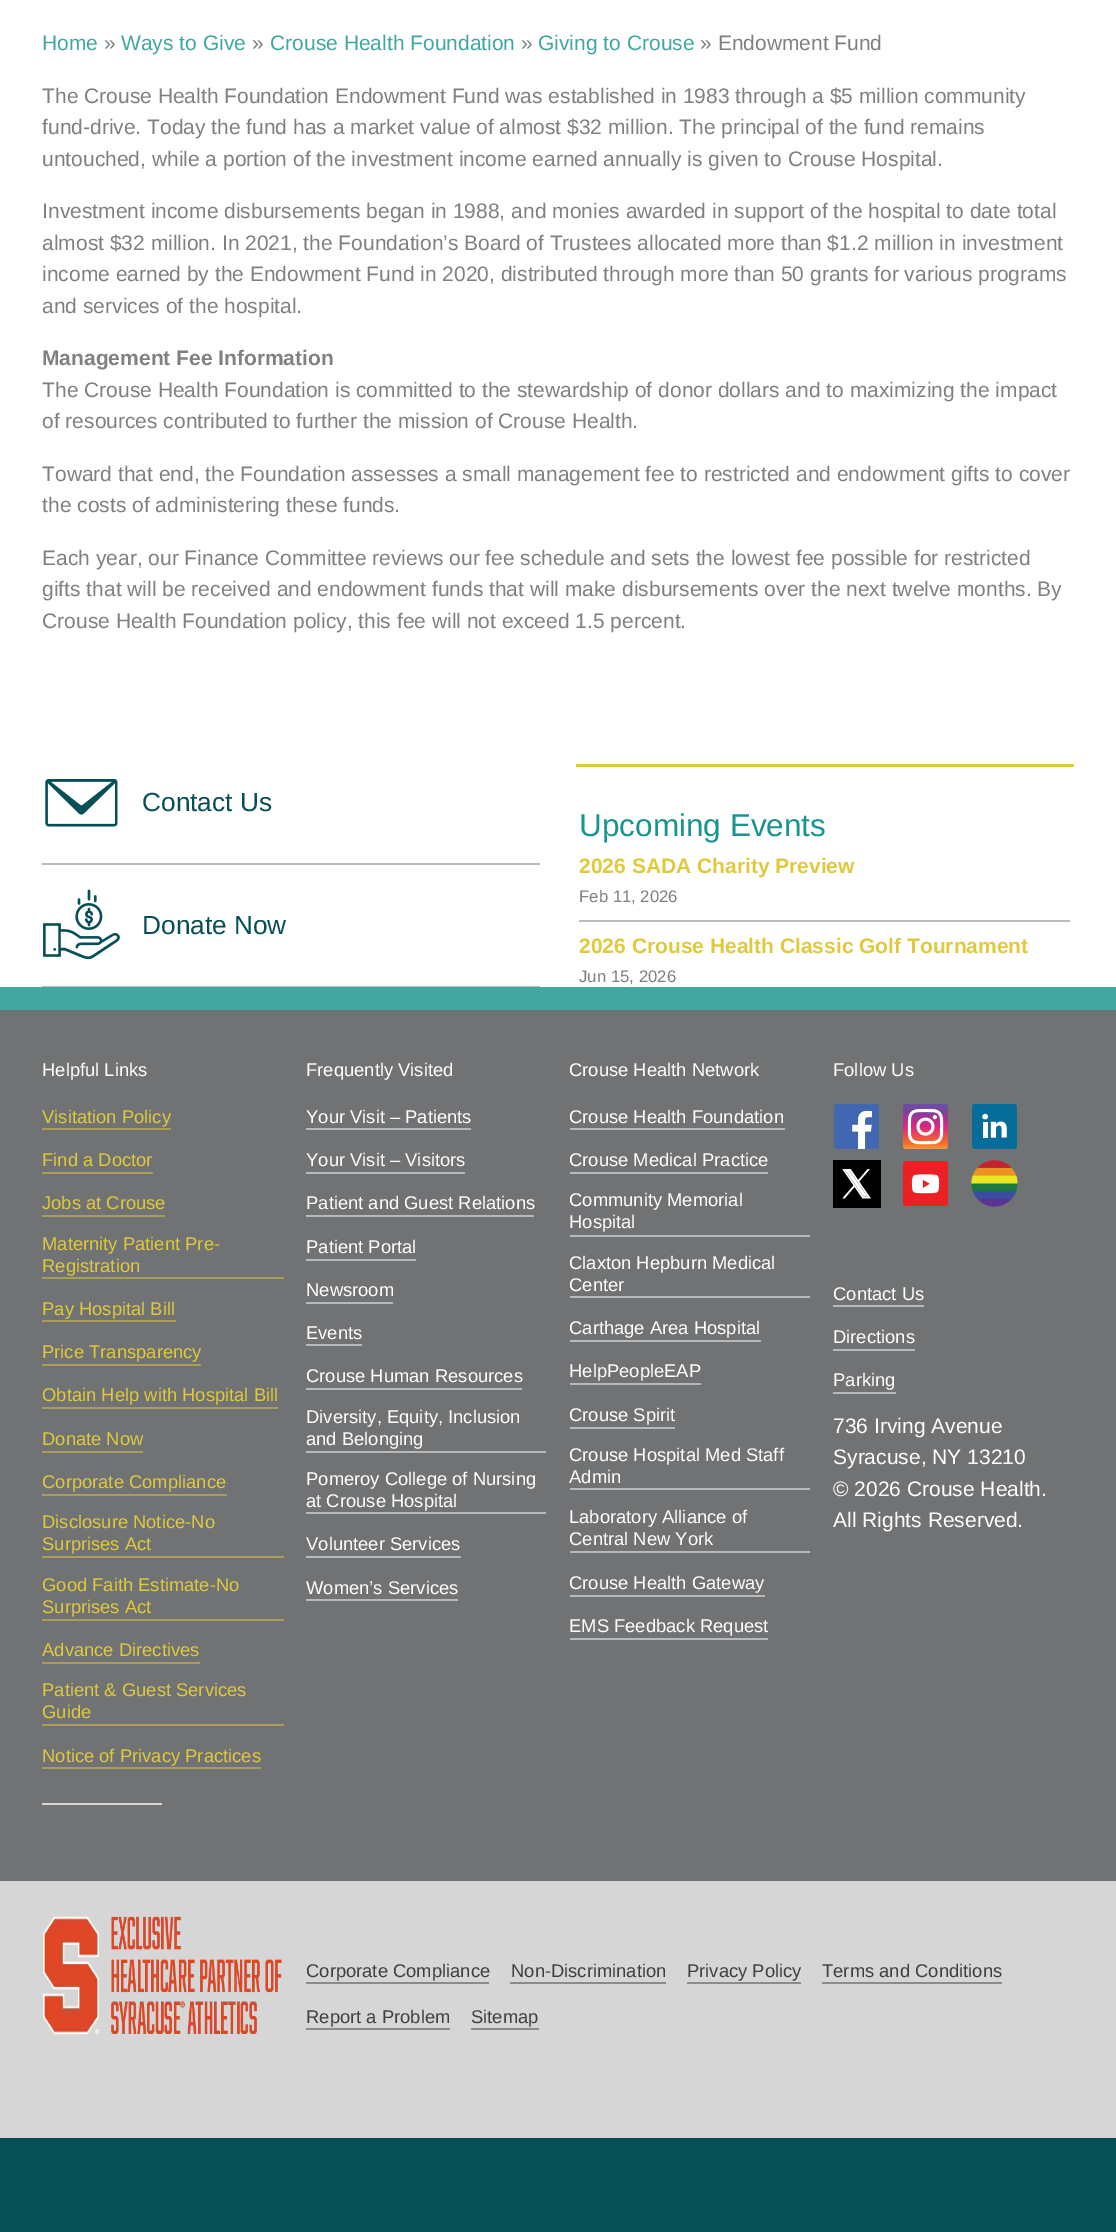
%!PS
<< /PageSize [1116 2232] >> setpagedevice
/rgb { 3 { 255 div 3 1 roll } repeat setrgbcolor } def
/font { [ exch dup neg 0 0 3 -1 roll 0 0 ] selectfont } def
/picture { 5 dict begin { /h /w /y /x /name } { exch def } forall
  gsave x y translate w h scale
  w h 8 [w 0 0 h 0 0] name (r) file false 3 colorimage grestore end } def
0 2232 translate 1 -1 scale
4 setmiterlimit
7 79 87 rgb
0 0 1116 2232 rectfill
255 255 255 rgb
0 0 1116 987 rectfill
188 188 188 rgb
42 863 498 2 rectfill
(img/1.rgb) 45 779 73 48 picture
42 986 498 1 rectfill
(img/2.rgb) 43 889 77 71 picture
[
  [576 764 498 3 224 202 60]
  [579 920 491 2 188 188 188]
  [0 1010 1116 871 112 114 116]
  [0 987 1116 23 66 167 161]
  [42 1128 129 2 168 158 88]
  [42 1172 111 2 168 158 88]
  [42 1215 123 2 168 158 88]
  [42 1277 242 2 168 158 88]
  [42 1320 134 2 168 158 88]
  [42 1364 159 2 168 158 88]
  [42 1407 236 2 168 158 88]
  [42 1451 101 2 168 158 88]
  [42 1494 185 2 168 158 88]
  [42 1556 242 2 168 158 88]
  [42 1619 242 2 168 158 88]
  [42 1662 158 2 168 158 88]
  [42 1724 242 2 168 158 88]
  [42 1767 219 2 168 158 88]
  [42 1803 120 2 214 214 214]
  [306 1128 165 2 184 185 186]
  [306 1172 159 2 184 185 186]
  [306 1215 228 2 184 185 186]
  [306 1259 110 2 184 185 186]
  [306 1302 87 2 184 185 186]
  [306 1344 56 2 184 185 186]
  [306 1388 216 2 184 185 186]
  [306 1451 240 2 184 185 186]
  [306 1512 240 2 184 185 186]
  [306 1556 155 2 184 185 186]
  [306 1599 152 2 184 185 186]
  [570 1128 215 2 184 185 186]
  [570 1172 198 2 184 185 186]
  [570 1235 240 2 184 185 186]
  [570 1296 240 2 184 185 186]
  [570 1340 191 2 184 185 186]
  [570 1383 131 2 184 185 186]
  [570 1427 105 2 184 185 186]
  [570 1488 240 2 184 185 186]
  [570 1551 240 2 184 185 186]
  [570 1595 195 2 184 185 186]
  [570 1638 198 2 184 185 186]
] { aload pop rgb rectfill } forall
(img/3.rgb) 834 1104 45 45 picture
(img/4.rgb) 903 1104 45 45 picture
(img/5.rgb) 972 1104 45 45 picture
0 0 0 rgb
833 1160 48 48 rectfill
(img/6.rgb) 842 1169 29 30 picture
(img/7.rgb) 903 1161 45 45 picture
(img/8.rgb) 971 1160 47 47 picture
[
  [833 1305 91 2 184 185 186]
  [833 1349 82 2 184 185 186]
  [833 1392 63 2 184 185 186]
  [0 1881 1116 257 214 214 214]
] { aload pop rgb rectfill } forall
(img/9.rgb) 43 1916 239 119 picture
[
  [306 1982 183 2 139 139 139]
  [510 1982 156 2 139 139 139]
  [687 1982 114 2 139 139 139]
  [822 1982 180 2 139 139 139]
  [306 2028 144 2 139 139 139]
  [471 2028 68 2 139 139 139]
] { aload pop rgb rectfill } forall
/LiberationSans-Regular 21 font
66 167 161 rgb
42 50 moveto (Home) show
126 128 131 rgb
104 50 moveto (») show
66 167 161 rgb
121 50 moveto (Ways to Give) show
126 128 131 rgb
252 50 moveto (») show
66 167 161 rgb
270 50 moveto (Crouse Health Foundation) show
126 128 131 rgb
521 50 moveto (») show
66 167 161 rgb
538 50 moveto (Giving to Crouse) show
126 128 131 rgb
[
  [(» Endowment Fund) 700 50]
  [(The Crouse Health Foundation Endowment Fund was established in 1983 through a $5 million community) 42 103]
  [(fund-drive. Today the fund has a market value of almost $32 million. The principal of the fund remains) 42 134]
  [(untouched, while a portion of the investment income earned annually is given to Crouse Hospital.) 42 166]
  [(Investment income disbursements began in 1988, and monies awarded in support of the hospital to date total) 42 218]
  [(almost $32 million. In 2021, the Foundation’s Board of Trustees allocated more than $1.2 million in investment) 42 250]
  [(income earned by the Endowment Fund in 2020, distributed through more than 50 grants for various programs) 42 281]
  [(and services of the hospital.) 42 313]
] { aload pop moveto show } forall
/LiberationSans-Bold 21 font
42 365 moveto (Management Fee Information) show
/LiberationSans-Regular 21 font
[
  [(The Crouse Health Foundation is committed to the stewardship of donor dollars and to maximizing the impact) 42 397]
  [(of resources contributed to further the mission of Crouse Health.) 42 428]
  [(Toward that end, the Foundation assesses a small management fee to restricted and endowment gifts to cover) 42 481]
  [(the costs of administering these funds.) 42 512]
  [(Each year, our Finance Committee reviews our fee schedule and sets the lowest fee possible for restricted) 42 565]
  [(gifts that will be received and endowment funds that will make disbursements over the next twelve months. By) 42 596]
  [(Crouse Health Foundation policy, this fee will not exceed 1.5 percent.) 42 628]
] { aload pop moveto show } forall
/LiberationSans-Regular 26.25 font
7 79 87 rgb
142 811 moveto (Contact Us) show
142 934 moveto (Donate Now) show
/LiberationSans-Regular 31.5 font
25 148 142 rgb
579 836 moveto (Upcoming Events) show
/LiberationSans-Bold 21 font
224 202 60 rgb
579 873 moveto (2026 SADA Charity Preview) show
/LiberationSans-Regular 16.75 font
126 128 131 rgb
579 902 moveto (Feb 11, 2026) show
/LiberationSans-Bold 21 font
224 202 60 rgb
579 953 moveto (2026 Crouse Health Classic Golf Tournament) show
/LiberationSans-Regular 16.75 font
126 128 131 rgb
579 982 moveto (Jun 15, 2026) show
/LiberationSans-Regular 18.4 font
255 255 255 rgb
42 1076 moveto (Helpful Links) show
224 202 60 rgb
[
  [(Visitation Policy) 42 1123]
  [(Find a Doctor) 42 1166]
  [(Jobs at Crouse) 42 1209]
  [(Maternity Patient Pre-) 42 1250]
  [(Registration) 42 1272]
  [(Pay Hospital Bill) 42 1315]
  [(Price Transparency) 42 1358]
  [(Obtain Help with Hospital Bill) 42 1401]
  [(Donate Now) 42 1445]
  [(Corporate Compliance) 42 1488]
  [(Disclosure Notice-No) 42 1528]
  [(Surprises Act) 42 1550]
  [(Good Faith Estimate-No) 42 1591]
  [(Surprises Act) 42 1613]
  [(Advance Directives) 42 1656]
  [(Patient & Guest Services) 42 1696]
  [(Guide) 42 1718]
  [(Notice of Privacy Practices) 42 1762]
] { aload pop moveto show } forall
255 255 255 rgb
[
  [(Frequently Visited) 306 1076]
  [(Your Visit – Patients) 306 1123]
  [(Your Visit – Visitors) 306 1166]
  [(Patient and Guest Relations) 306 1209]
  [(Patient Portal) 306 1253]
  [(Newsroom) 306 1296]
  [(Events) 306 1339]
  [(Crouse Human Resources) 306 1382]
  [(Diversity, Equity, Inclusion) 306 1423]
  [(and Belonging) 306 1445]
  [(Pomeroy College of Nursing) 306 1485]
  [(at Crouse Hospital) 306 1507]
  [(Volunteer Services) 306 1550]
  [(Women’s Services) 306 1594]
  [(Crouse Health Network) 569 1076]
  [(Crouse Health Foundation) 569 1123]
  [(Crouse Medical Practice) 569 1166]
  [(Community Memorial) 569 1206]
  [(Hospital) 569 1228]
  [(Claxton Hepburn Medical) 569 1269]
  [(Center) 569 1291]
  [(Carthage Area Hospital) 569 1334]
  [(HelpPeopleEAP) 569 1377]
  [(Crouse Spirit) 569 1421]
  [(Crouse Hospital Med Staff) 569 1461]
  [(Admin) 569 1483]
  [(Laboratory Alliance of) 569 1523]
  [(Central New York) 569 1545]
  [(Crouse Health Gateway) 569 1589]
  [(EMS Feedback Request) 569 1632]
  [(Follow Us) 833 1076]
  [(Contact Us) 833 1300]
  [(Directions) 833 1343]
  [(Parking) 833 1386]
] { aload pop moveto show } forall
/LiberationSans-Regular 21 font
[
  [(736 Irving Avenue) 833 1433]
  [(Syracuse, NY 13210) 833 1464]
  [(© 2026 Crouse Health.) 833 1496]
  [(All Rights Reserved.) 833 1527]
] { aload pop moveto show } forall
/LiberationSans-Regular 18.4 font
64 64 64 rgb
[
  [(Corporate Compliance) 306 1977]
  [(Non-Discrimination) 511 1977]
  [(Privacy Policy) 687 1977]
  [(Terms and Conditions) 822 1977]
  [(Report a Problem) 306 2023]
  [(Sitemap) 471 2023]
] { aload pop moveto show } forall
showpage
